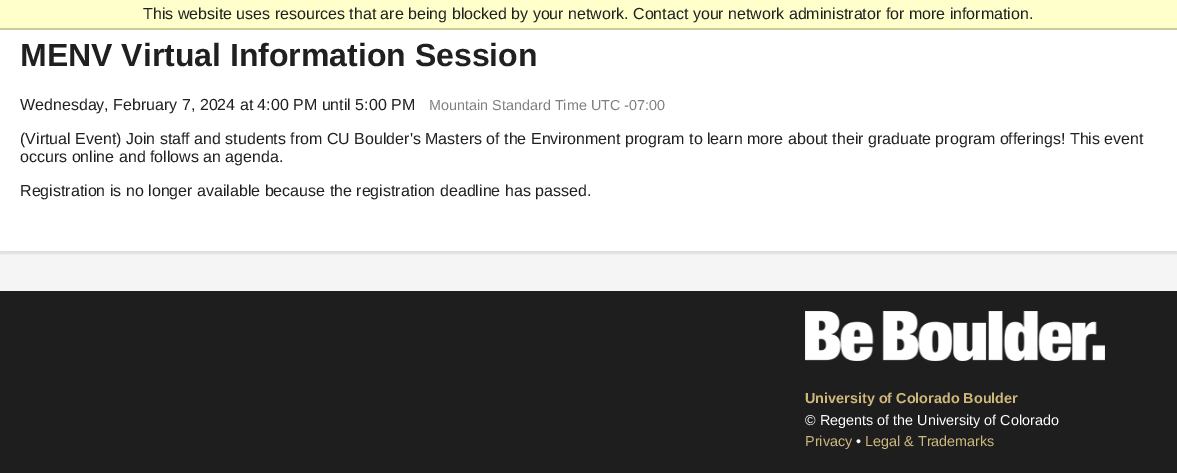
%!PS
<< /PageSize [1177 473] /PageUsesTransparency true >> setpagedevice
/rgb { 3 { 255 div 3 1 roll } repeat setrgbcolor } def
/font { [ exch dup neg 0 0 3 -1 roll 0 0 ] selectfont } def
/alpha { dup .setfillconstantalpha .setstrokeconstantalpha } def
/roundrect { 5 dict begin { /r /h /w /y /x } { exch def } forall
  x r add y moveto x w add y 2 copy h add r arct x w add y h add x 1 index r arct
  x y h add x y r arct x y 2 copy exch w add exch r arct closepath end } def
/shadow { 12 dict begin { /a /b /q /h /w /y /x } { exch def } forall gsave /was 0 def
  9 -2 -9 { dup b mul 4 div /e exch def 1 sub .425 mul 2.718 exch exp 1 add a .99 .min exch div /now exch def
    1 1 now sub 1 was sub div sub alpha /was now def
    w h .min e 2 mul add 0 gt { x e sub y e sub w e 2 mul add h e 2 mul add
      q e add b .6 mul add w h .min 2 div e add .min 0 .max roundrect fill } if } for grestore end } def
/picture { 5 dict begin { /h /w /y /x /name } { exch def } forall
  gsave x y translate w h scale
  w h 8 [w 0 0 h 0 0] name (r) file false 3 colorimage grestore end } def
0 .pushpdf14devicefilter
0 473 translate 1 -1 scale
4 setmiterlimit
245 245 245 rgb
0 0 1177 473 rectfill
0 0 0 rgb
0 -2 1177 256 0 0.5 0.08 shadow
[
  [0 0 1177 28 255 255 204]
  [0 28 1177 2 204 204 153]
  [0 30 1177 221 255 255 255]
  [0 291 1177 182 30 30 30]
] { aload pop rgb rectfill } forall
(img/1.rgb) 805 311 300 50 picture
/LiberationSans-Regular 16 font
32 32 32 rgb
143 19 moveto (This website uses resources that are being blocked by your network. Contact your network administrator for more information.) show
/LiberationSans-Bold 32 font
20 66 moveto (MENV Virtual Information Session) show
/LiberationSans-Regular 16 font
20 110 moveto (Wednesday, February 7, 2024 at 4:00 PM until 5:00 PM) show
/LiberationSans-Regular 14.4 font
128 128 128 rgb
429 110 moveto (Mountain Standard Time UTC -07:00) show
/LiberationSans-Regular 16 font
32 32 32 rgb
[
  [(\(Virtual Event\) Join staff and students from CU Boulder's Masters of the Environment program to learn more about their graduate program offerings! This event) 20 144]
  [(occurs online and follows an agenda.) 20 162]
  [(Registration is no longer available because the registration deadline has passed.) 20 196]
] { aload pop moveto show } forall
/LiberationSans-Bold 14.4 font
207 184 124 rgb
805 403 moveto (University of Colorado Boulder) show
/LiberationSans-Regular 14.4 font
255 255 255 rgb
805 425 moveto (© Regents of the University of Colorado) show
207 184 124 rgb
805 446 moveto (Privacy) show
255 255 255 rgb
856 446 moveto (•) show
207 184 124 rgb
865 446 moveto (Legal & Trademarks) show
.poppdf14devicefilter showpage
